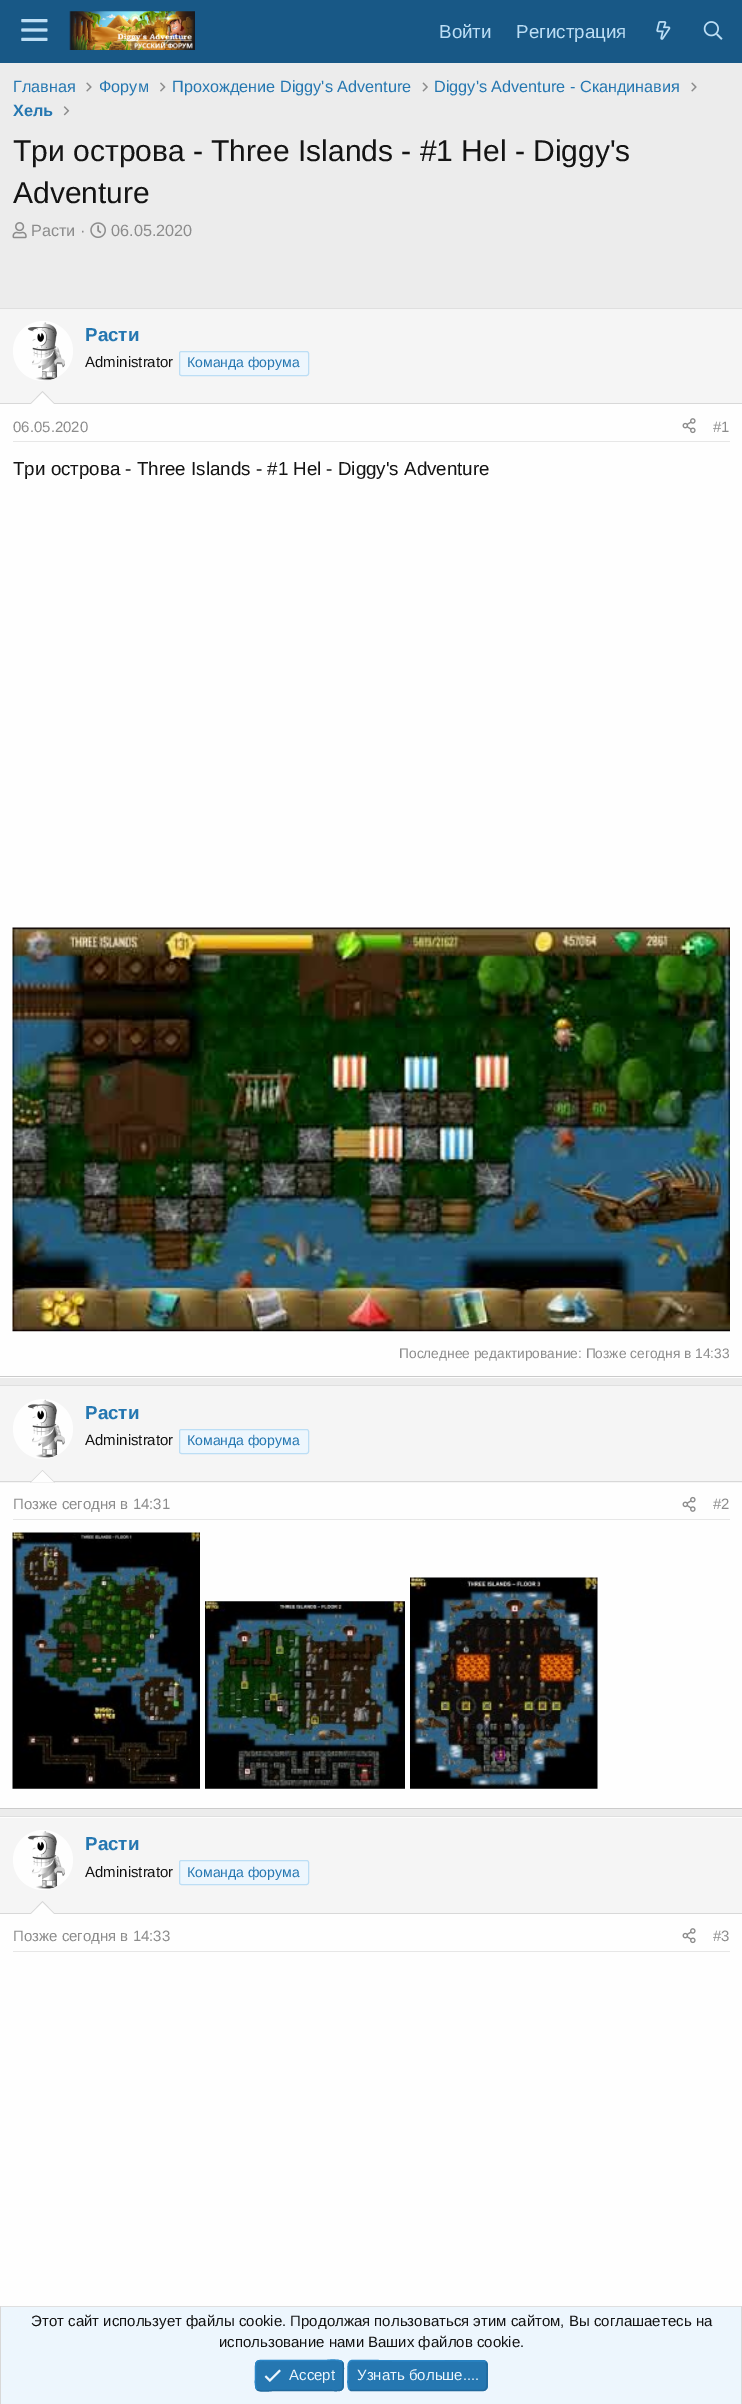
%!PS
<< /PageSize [742 2404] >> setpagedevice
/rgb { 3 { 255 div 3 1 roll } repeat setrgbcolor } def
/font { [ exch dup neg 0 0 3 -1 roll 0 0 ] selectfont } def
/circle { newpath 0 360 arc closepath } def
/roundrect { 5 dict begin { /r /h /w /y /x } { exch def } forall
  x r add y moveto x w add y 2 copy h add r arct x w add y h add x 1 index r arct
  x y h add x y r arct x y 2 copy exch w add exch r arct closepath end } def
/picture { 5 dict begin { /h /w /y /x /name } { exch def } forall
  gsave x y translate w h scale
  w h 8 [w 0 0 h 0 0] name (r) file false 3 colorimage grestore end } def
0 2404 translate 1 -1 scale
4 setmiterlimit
236 236 236 rgb
0 0 742 2404 rectfill
24 88 134 rgb
0 0 742 63 rectfill
(img/1.rgb) 21 19 27 22 picture
(img/2.rgb) 69 11 126 39 picture
(img/3.rgb) 656 21 15 19 picture
(img/4.rgb) 703 21 20 19 picture
(img/5.rgb) 86 82 6 10 picture
(img/6.rgb) 160 82 6 10 picture
(img/7.rgb) 422 82 6 10 picture
(img/5.rgb) 691 82 6 10 picture
(img/8.rgb) 63 106 7 10 picture
(img/9.rgb) 12 222 15 17 picture
(img/10.rgb) 90 222 16 16 picture
[
  [0 404 742 974 254 254 254]
  [0 308 742 1 223 223 223]
  [0 1376 742 1 203 203 203]
  [0 309 742 94 245 245 245]
  [0 403 742 1 216 216 216]
] { aload pop rgb rectfill } forall
254 254 254 rgb
43 351 30 circle fill
(img/11.rgb) 27 322 38 59 picture
237 246 253 rgb
179.5 351.5 129 24 2 roundrect gsave fill grestore
188 222 245 rgb
stroke
216 216 216 rgb
55 404 moveto 30 404 lineto 42.5 391 lineto closepath fill
254 254 254 rgb
54 404 moveto 31 404 lineto 42.5 392.5 lineto closepath fill
231 231 231 rgb
13 441 717 1 rectfill
(img/12.rgb) 682 418 14 16 picture
(img/13.rgb) 12 927 718 405 picture
[
  [0 1483 742 325 254 254 254]
  [0 1385 742 1 223 223 223]
  [0 1808 742 1 203 203 203]
  [0 1386 742 97 245 245 245]
  [0 1481 742 1 216 216 216]
] { aload pop rgb rectfill } forall
254 254 254 rgb
43 1429 30 circle fill
(img/14.rgb) 27 1399 38 59 picture
237 246 253 rgb
179.5 1429.5 129 24 2 roundrect gsave fill grestore
188 222 245 rgb
stroke
216 216 216 rgb
55 1482.5 moveto 30 1482.5 lineto 42.5 1470 lineto closepath fill
254 254 254 rgb
54 1482.5 moveto 31 1482.5 lineto 42.5 1471 lineto closepath fill
231 231 231 rgb
13 1519 717 1 rectfill
(img/15.rgb) 682 1496 14 16 picture
(img/16.rgb) 12 1532 188 257 picture
(img/17.rgb) 205 1601 200 188 picture
(img/18.rgb) 410 1577 188 212 picture
[
  [0 1817 742 489 254 254 254]
  [0 1816 742 1 223 223 223]
  [0 1818 742 95 245 245 245]
  [0 1913 742 1 216 216 216]
] { aload pop rgb rectfill } forall
254 254 254 rgb
43 1860 30 circle fill
(img/19.rgb) 27 1831 38 58 picture
237 246 253 rgb
179.5 1860.5 129 24 2 roundrect gsave fill grestore
188 222 245 rgb
stroke
216 216 216 rgb
55 1914 moveto 30 1914 lineto 42.5 1901 lineto closepath fill
254 254 254 rgb
54 1914 moveto 31 1914 lineto 42.5 1902.5 lineto closepath fill
231 231 231 rgb
13 1951 717 1 rectfill
(img/12.rgb) 682 1928 14 16 picture
[
  [1 2307 740 97 237 246 253]
  [0 2306 742 1 223 223 223]
  [741 2306 1 98 216 216 216]
  [0 2306 1 98 216 216 216]
] { aload pop rgb rectfill } forall
37 119 177 rgb
255 2360 89 31 5 roundrect fill
33 105 156 rgb
1.2 setlinewidth
342 2362 moveto 344.5 2364.5 343 2372.5 343 2375.5 curveto 343 2393.5 344.5 2390.5 325.5 2390.5 curveto 273 2390.5 lineto 272 2390.5 260 2392.5 257 2389.5 curveto stroke
41 133 198 rgb
257 2389.5 moveto 254.5 2386.5 255.5 2379 255.5 2375.5 curveto 255.5 2358 254 2360.5 273 2360.5 curveto 325.5 2360.5 lineto 327 2360.5 338.5 2358.5 342 2362 curveto stroke
(img/20.rgb) 264 2369 17 13 picture
37 119 177 rgb
348 2360 140 31 5 roundrect fill
33 105 156 rgb
485.5 2362 moveto 488 2364.5 487 2372.5 487 2375.5 curveto 487 2382.5 lineto 487 2386 487 2390.5 482.5 2390.5 curveto 351 2390.5 lineto 349.5 2389.5 lineto stroke
41 133 198 rgb
349.5 2389.5 moveto 347 2386.5 348 2379 348 2375.5 curveto 348 2368.5 lineto 348 2365.5 348 2360.5 352.5 2360.5 curveto 484 2361 lineto 485.5 2362 lineto stroke
/LiberationSans-Regular 18.75 font
188 222 245 rgb
439 38 moveto (Войти) show
516 38 moveto (Регистрация) show
/LiberationSans-Regular 16.25 font
37 119 177 rgb
[
  [(Главная) 13 92]
  [(Форум) 99 92]
  [(Прохождение Diggy's Adventure) 172 92]
  [(Diggy's Adventure - Скандинавия) 434 92]
] { aload pop moveto show } forall
/LiberationSans-Bold 16.25 font
13 116 moveto (Хель) show
/LiberationSans-Regular 30 font
20 20 20 rgb
13 161 moveto (Три острова - Three Islands - #1 Hel - Diggy's) show
13 203 moveto (Adventure) show
/LiberationSans-Regular 16.25 font
140 140 140 rgb
31 236 moveto (Расти ·) show
111 236 moveto (06.05.2020) show
/LiberationSans-Bold 18.75 font
37 119 177 rgb
85 341 moveto (Расти) show
/LiberationSans-Regular 15 font
20 20 20 rgb
85 367 moveto (Administrator) show
/LiberationSans-Regular 14 font
37 119 177 rgb
187 367 moveto (Команда форума) show
/LiberationSans-Regular 15 font
140 140 140 rgb
13 432 moveto (06.05.2020) show
713 432 moveto (#1) show
/LiberationSans-Regular 18.75 font
20 20 20 rgb
13 475 moveto (Три острова - Three Islands - #1 Hel - Diggy's Adventure) show
/LiberationSans-Regular 13.75 font
140 140 140 rgb
399 1358 moveto (Последнее редактирование: Позже сегодня в 14:33) show
/LiberationSans-Bold 18.75 font
37 119 177 rgb
85 1419 moveto (Расти) show
/LiberationSans-Regular 15 font
20 20 20 rgb
85 1445 moveto (Administrator) show
/LiberationSans-Regular 14 font
37 119 177 rgb
187 1445 moveto (Команда форума) show
/LiberationSans-Regular 15 font
140 140 140 rgb
13 1509 moveto (Позже сегодня в 14:31) show
713 1509 moveto (#2) show
/LiberationSans-Bold 18.75 font
37 119 177 rgb
85 1850 moveto (Расти) show
/LiberationSans-Regular 15 font
20 20 20 rgb
85 1877 moveto (Administrator) show
/LiberationSans-Regular 14 font
37 119 177 rgb
187 1877 moveto (Команда форума) show
/LiberationSans-Regular 15 font
140 140 140 rgb
13 1941 moveto (Позже сегодня в 14:33) show
713 1941 moveto (#3) show
20 20 20 rgb
31 2326 moveto (Этот сайт использует файлы cookie. Продолжая пользоваться этим сайтом, Вы соглашаетесь на) show
219 2347 moveto (использование нами Ваших файлов cookie.) show
237 246 253 rgb
289 2380 moveto (Accept) show
357 2380 moveto (Узнать больше....) show
showpage
